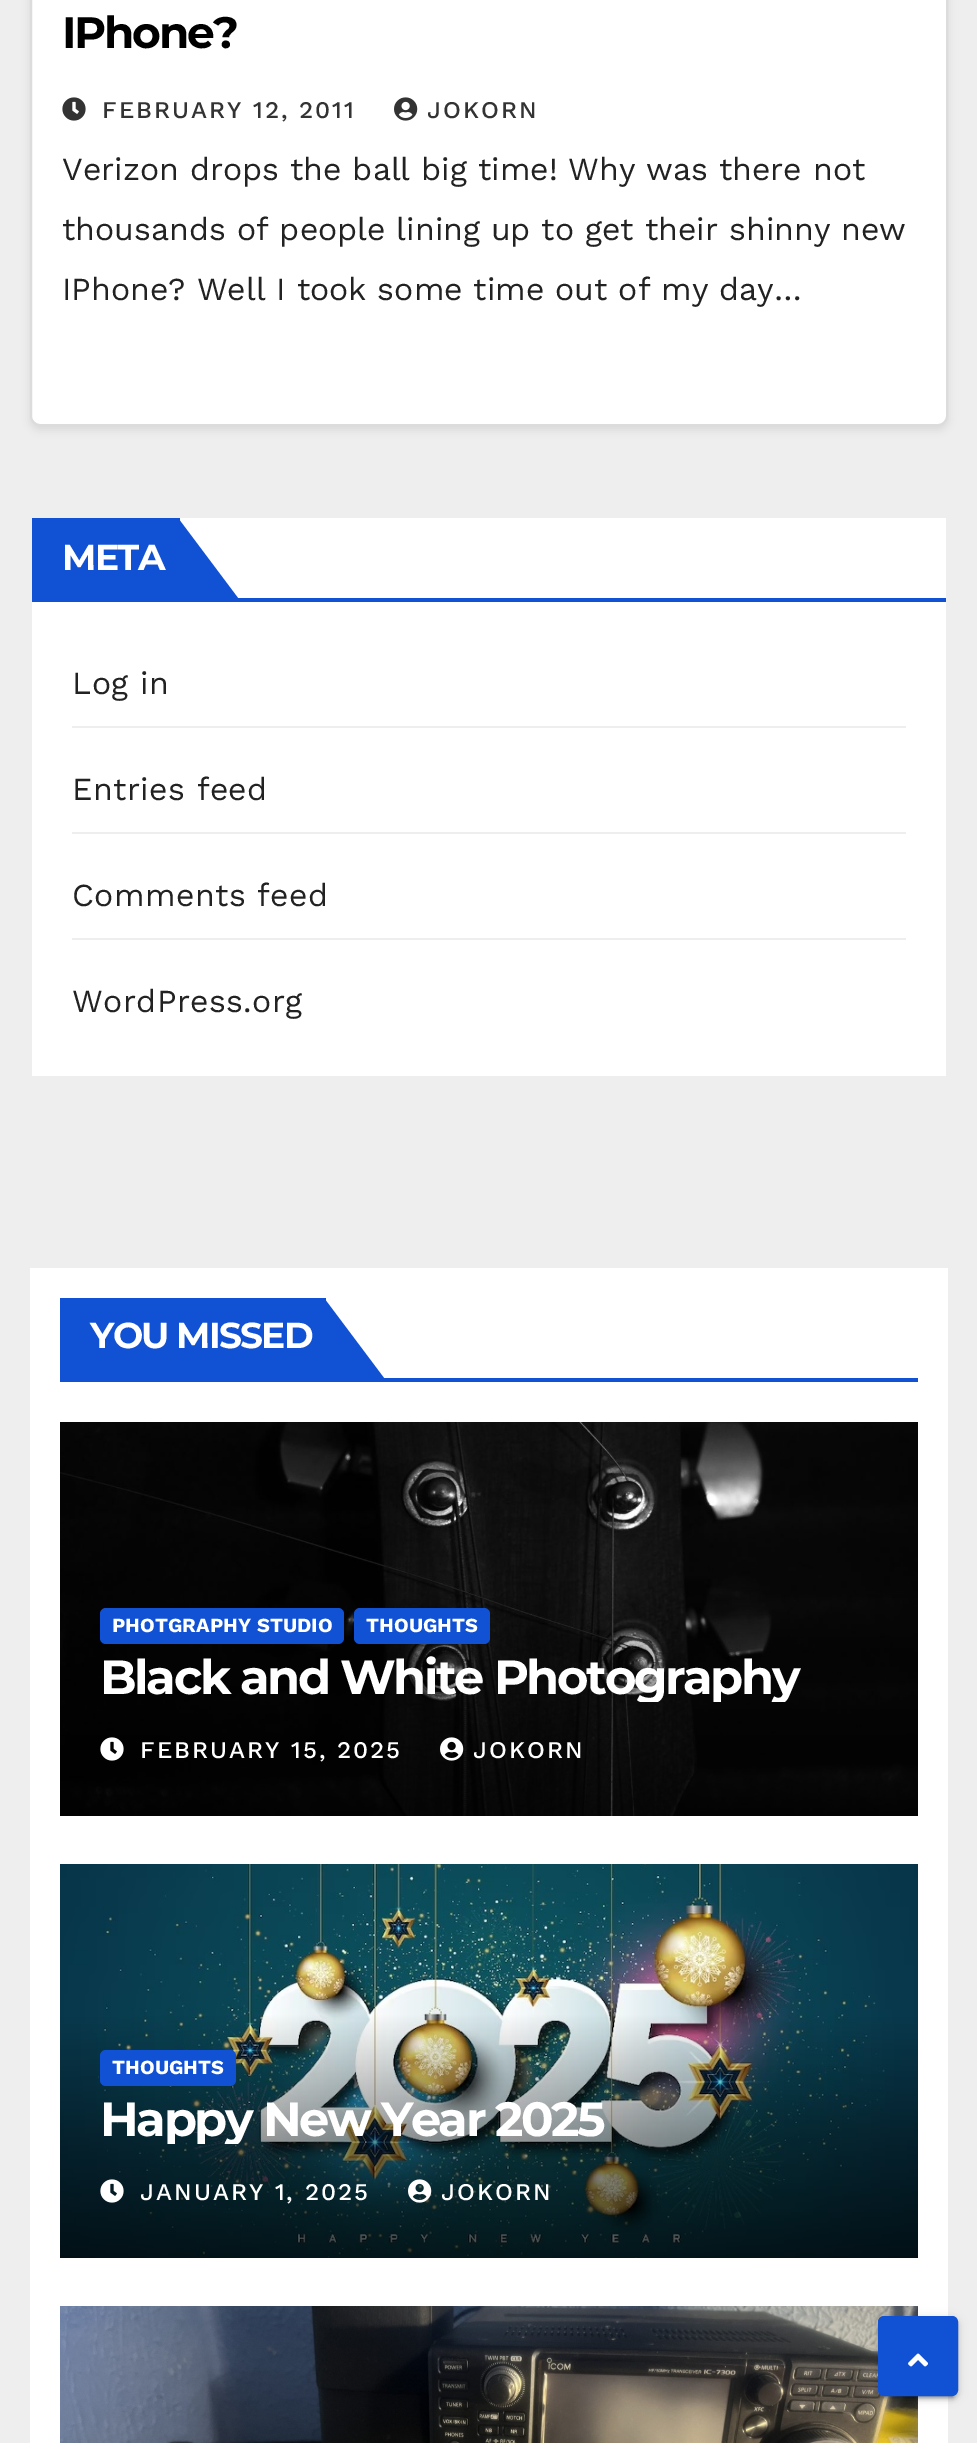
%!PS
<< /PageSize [977 2443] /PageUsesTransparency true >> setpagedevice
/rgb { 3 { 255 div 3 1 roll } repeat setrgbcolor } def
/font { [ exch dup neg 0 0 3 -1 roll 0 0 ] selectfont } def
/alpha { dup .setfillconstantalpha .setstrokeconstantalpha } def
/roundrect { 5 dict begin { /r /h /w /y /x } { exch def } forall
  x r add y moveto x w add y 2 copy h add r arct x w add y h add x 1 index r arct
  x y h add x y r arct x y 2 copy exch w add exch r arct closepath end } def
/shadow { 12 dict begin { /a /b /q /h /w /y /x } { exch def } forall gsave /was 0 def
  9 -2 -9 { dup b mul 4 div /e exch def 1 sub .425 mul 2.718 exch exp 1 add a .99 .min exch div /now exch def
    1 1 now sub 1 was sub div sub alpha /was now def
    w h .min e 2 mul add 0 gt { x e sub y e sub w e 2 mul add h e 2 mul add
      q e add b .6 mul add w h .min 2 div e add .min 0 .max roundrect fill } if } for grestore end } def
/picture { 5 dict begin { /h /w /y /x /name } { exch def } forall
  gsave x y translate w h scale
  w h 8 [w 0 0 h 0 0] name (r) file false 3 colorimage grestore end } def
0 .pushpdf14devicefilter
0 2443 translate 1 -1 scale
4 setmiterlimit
238 238 238 rgb
0 0 977 2443 rectfill
0 0 0 rgb
30 -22 918 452 10 4 0.08 shadow
255 255 255 rgb
31 -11 916 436 9 roundrect gsave fill grestore
221 220 220 rgb
2 setlinewidth
stroke
(img/1.rgb) 62 97 24 24 picture
(img/2.rgb) 394 97 24 24 picture
[
  [32 518 914 558 255 255 255]
  [32 598 914 4 17 81 211]
  [32 518 148 80 17 81 211]
] { aload pop rgb rectfill } forall
178 598 moveto 178 518 lineto 238 598 lineto closepath fill
[
  [72 726 834 2 238 238 238]
  [72 832 834 2 238 238 238]
  [72 938 834 2 238 238 238]
  [30 1268 918 1175 255 255 255]
  [60 1378 858 4 17 81 211]
  [60 1298 266 80 17 81 211]
] { aload pop rgb rectfill } forall
324 1378 moveto 324 1298 lineto 384 1378 lineto closepath fill
(img/3.rgb) 60 1422 858 394 picture
100 1608 244 36 6 roundrect fill
354 1608 136 36 6 roundrect fill
(img/4.rgb) 100 1737 24 24 picture
(img/5.rgb) 440 1737 24 24 picture
(img/6.rgb) 60 1864 858 394 picture
100 2050 136 36 6 roundrect fill
(img/7.rgb) 100 2179 24 24 picture
(img/8.rgb) 408 2179 24 24 picture
(img/9.rgb) 60 2306 858 137 picture
0 0 0 rgb
878 2318 80 80 6 5 0.12 shadow
882 2326 72 72 2 1 0.2 shadow
878 2320 80 80 6 2 0.14 shadow
17 81 211 rgb
880 2318 76 76 4 roundrect gsave fill grestore
4 setlinewidth
stroke
(img/10.rgb) 908 2353 20 14 picture
/Montserrat-Bold 44 font
0 0 0 rgb
62 48 moveto -2.25 0 (IPhone?) ashow
/WorkSans-Medium 24 font
51 51 51 rgb
102 118 moveto 2 0 (FEBRUARY 12, 2011) ashow
427 118 moveto 2 0 (JOKORN) ashow
/WorkSans-Regular 32 font
34 34 34 rgb
[
  [(Verizon drops the ball big time! Why was there not) 62 180]
  [(thousands of people lining up to get their shinny new) 62 240]
  [(IPhone? Well I took some time out of my day…) 62 300]
] { aload pop moveto show } forall
/Montserrat-Bold 36 font
255 255 255 rgb
62 570 moveto -1.75 0 (META) ashow
/WorkSans-Regular 32 font
34 34 34 rgb
72 694 moveto 0.4 0 (Log in) ashow
72 800 moveto 0.4 0 (Entries feed) ashow
72 906 moveto 0.4 0 (Comments feed) ashow
72 1012 moveto 0.4 0 (WordPress.org) ashow
/Montserrat-Bold 36 font
255 255 255 rgb
90 1348 moveto -1.75 0 (YOU MISSED) ashow
/WorkSans-Bold 20 font
112 1632 moveto (PHOTGRAPHY STUDIO) show
366 1632 moveto (THOUGHTS) show
gsave
100 1652 778 50 rectclip
/Montserrat-Bold 48 font
100 1694 moveto -2.4 0 (Black and White Photography) ashow
grestore
/WorkSans-Medium 24 font
140 1758 moveto 2 0 (FEBRUARY 15, 2025) ashow
473 1758 moveto 2 0 (JOKORN) ashow
/WorkSans-Bold 20 font
112 2074 moveto (THOUGHTS) show
gsave
100 2094 778 50 rectclip
/Montserrat-Bold 48 font
100 2136 moveto -2.4 0 (Happy New Year 2025) ashow
grestore
/WorkSans-Medium 24 font
140 2200 moveto 2 0 (JANUARY 1, 2025) ashow
441 2200 moveto 2 0 (JOKORN) ashow
.poppdf14devicefilter showpage
